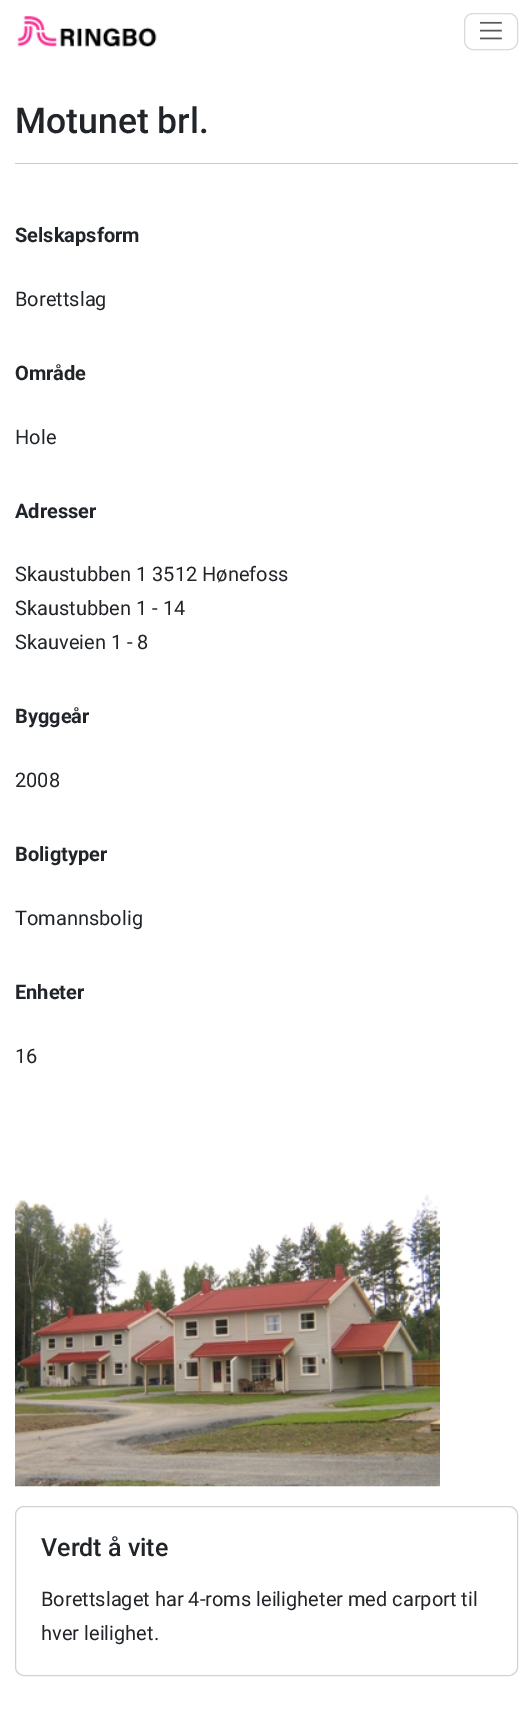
%!PS
<< /PageSize [532 1729] >> setpagedevice
/rgb { 3 { 255 div 3 1 roll } repeat setrgbcolor } def
/font { [ exch dup neg 0 0 3 -1 roll 0 0 ] selectfont } def
/roundrect { 5 dict begin { /r /h /w /y /x } { exch def } forall
  x r add y moveto x w add y 2 copy h add r arct x w add y h add x 1 index r arct
  x y h add x y r arct x y 2 copy exch w add exch r arct closepath end } def
/picture { 5 dict begin { /h /w /y /x /name } { exch def } forall
  gsave x y translate w h scale
  w h 8 [w 0 0 h 0 0] name (r) file false 3 colorimage grestore end } def
0 1729 translate 1 -1 scale
4 setmiterlimit
255 255 255 rgb
0 0 532 1729 rectfill
(img/1.rgb) 17 16 140 31 picture
217 217 217 rgb
464.5 13.5 53 36 8.5 roundrect stroke
(img/2.rgb) 480 21 22 19 picture
200 201 202 rgb
15 163 503 1 rectfill
(img/3.rgb) 15 1194 425 293 picture
210 210 210 rgb
15.5 1506.5 502 169 8.5 roundrect stroke
/Roboto-Medium 35.5 font
33 37 41 rgb
15 133 moveto (Motunet brl.) show
/Roboto-Bold 20 font
15 242 moveto (Selskapsform) show
/Roboto-Regular 20 font
15 306 moveto (Borettslag) show
/Roboto-Bold 20 font
15 380 moveto (Område) show
/Roboto-Regular 20 font
15 444 moveto (Hole) show
/Roboto-Bold 20 font
15 518 moveto (Adresser) show
/Roboto-Regular 20 font
[
  [(Skaustubben 1 3512 Hønefoss) 15 581]
  [(Skaustubben 1 - 14) 15 615]
  [(Skauveien 1 - 8) 15 649]
] { aload pop moveto show } forall
/Roboto-Bold 20 font
15 723 moveto (Byggeår) show
/Roboto-Regular 20 font
15 787 moveto (2008) show
/Roboto-Bold 20 font
15 861 moveto (Boligtyper) show
/Roboto-Regular 20 font
15 925 moveto (Tomannsbolig) show
/Roboto-Bold 20 font
15 999 moveto (Enheter) show
/Roboto-Regular 20 font
15 1063 moveto (16) show
/Roboto-Medium 25 font
41 1556 moveto (Verdt å vite) show
/Roboto-Regular 20 font
41 1606 moveto (Borettslaget har 4-roms leiligheter med carport til) show
41 1640 moveto (hver leilighet.) show
showpage
